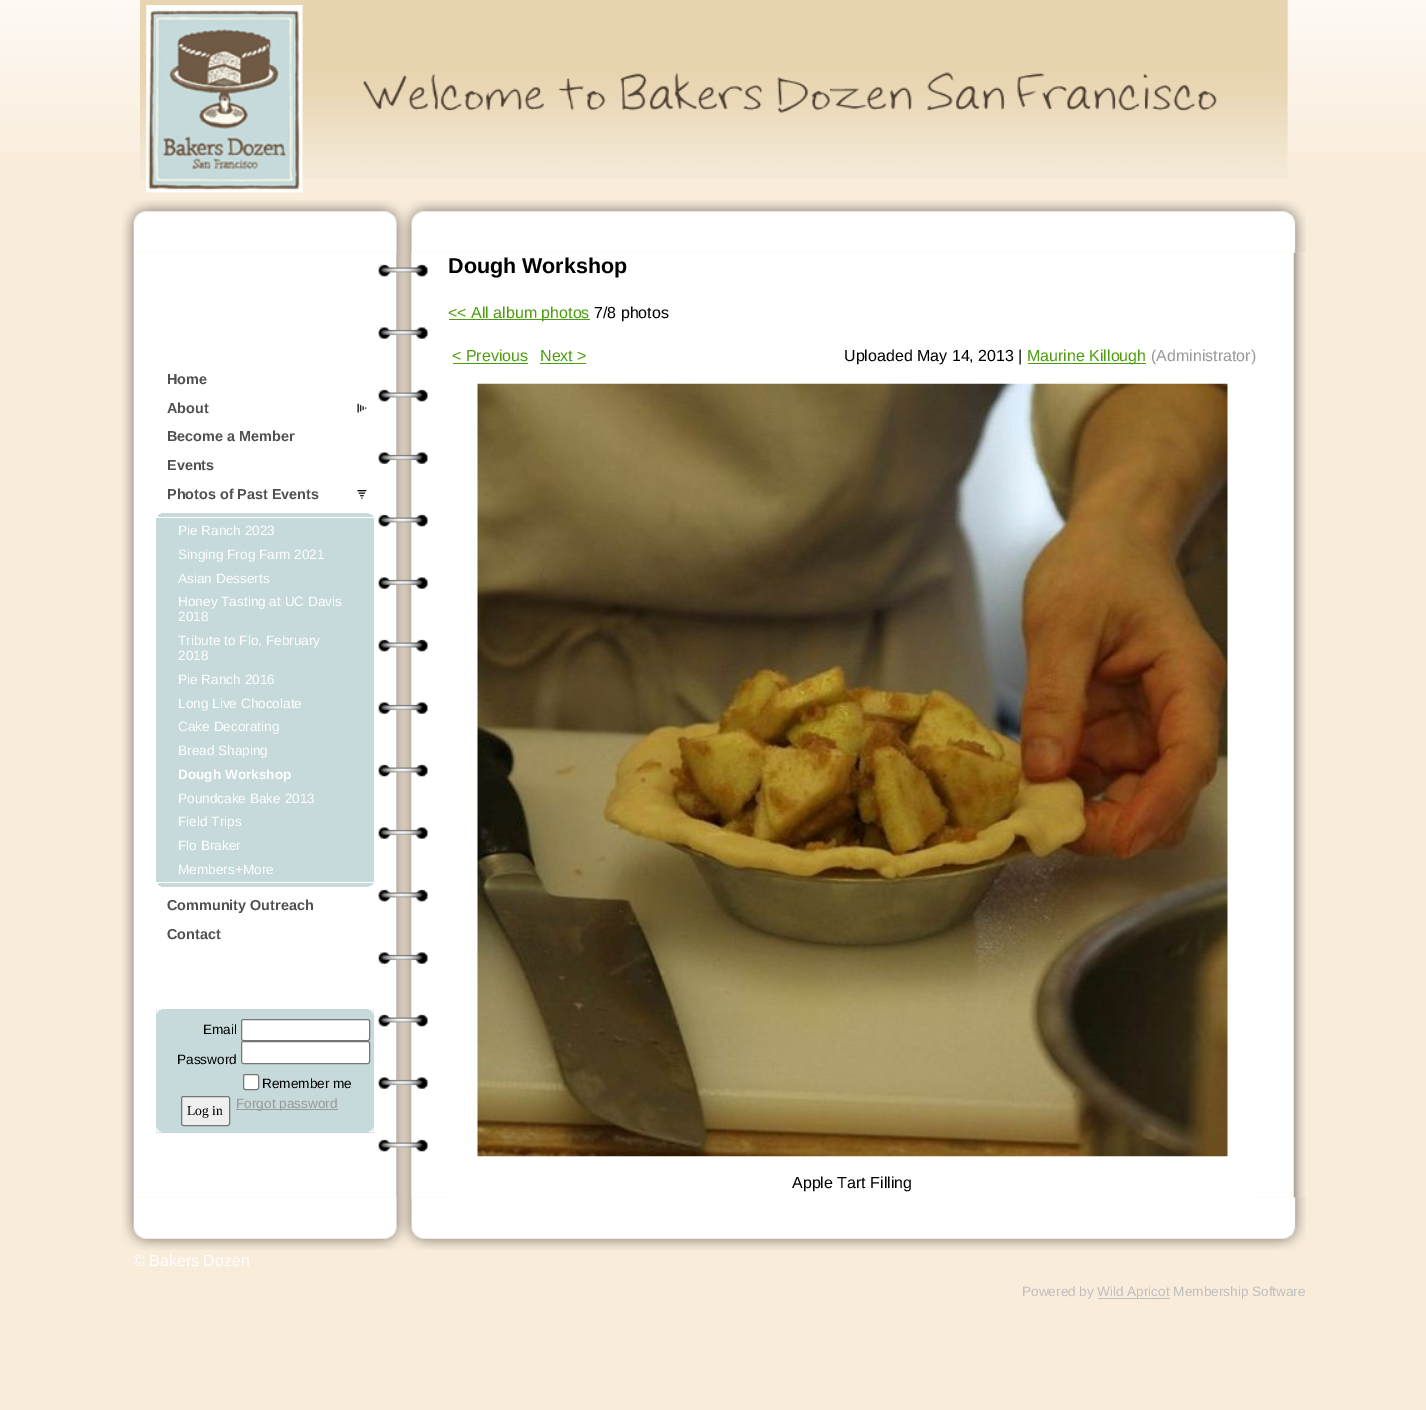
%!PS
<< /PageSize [1426 1410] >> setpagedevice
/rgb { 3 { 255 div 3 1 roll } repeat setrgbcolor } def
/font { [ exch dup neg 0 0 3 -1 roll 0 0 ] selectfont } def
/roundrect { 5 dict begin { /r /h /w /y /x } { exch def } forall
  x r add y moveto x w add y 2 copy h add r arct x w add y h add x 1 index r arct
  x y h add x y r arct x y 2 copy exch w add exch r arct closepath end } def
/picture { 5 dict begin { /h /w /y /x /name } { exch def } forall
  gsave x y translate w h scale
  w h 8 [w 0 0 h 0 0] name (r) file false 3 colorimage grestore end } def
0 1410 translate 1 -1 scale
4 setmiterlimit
249 236 219 rgb
0 0 1426 1410 rectfill
(img/1.rgb) 0 0 1426 152 picture
140 0 1148 152 rectfill
(img/2.rgb) 140 0 1148 179 picture
(img/3.rgb) 146 5 157 188 picture
(img/4.rgb) 363 72 854 41 picture
(img/6.rgb) 122 252 1183 946 picture
(img/5.rgb) 122 200 1184 53 picture
(img/7.rgb) 378 264 12 888 picture
(img/8.rgb) 416 264 12 888 picture
(img/9.rgb) 381 267 42 881 picture
(img/10.rgb) 357 403 10 10 picture
(img/11.rgb) 357 490 10 9 picture
[
  [161 513 208 1 198 218 219]
  [159 514 212 1 198 218 219]
  [158 515 215 2 198 218 219]
  [156 518 218 364 198 218 219]
  [158 883 215 2 198 218 219]
  [159 885 212 1 198 218 219]
  [161 886 208 1 198 218 219]
  [156 1009 218 124 198 218 219]
] { aload pop rgb rectfill } forall
(img/12.rgb) 156 1009 218 5 picture
255 255 255 rgb
241.5 1019.5 128 21 2 roundrect gsave fill grestore
118 118 118 rgb
stroke
255 255 255 rgb
241.5 1041.5 128 22 2 roundrect gsave fill grestore
118 118 118 rgb
stroke
255 255 255 rgb
243.5 1074.5 15 15 2 roundrect gsave fill grestore
118 118 118 rgb
stroke
239 239 239 rgb
181.5 1096.5 48 29 2 roundrect gsave fill grestore
118 118 118 rgb
stroke
153 153 153 rgb
236 1109 102 1 rectfill
(img/13.rgb) 156 1127 218 6 picture
(img/15.rgb) 122 1197 1184 53 picture
[
  [449 1197 807 1 255 255 255]
  [449 319 141 1 76 157 11]
  [453 363 75 1 76 157 11]
  [540 363 46 1 76 157 11]
  [1028 363 118 1 76 157 11]
] { aload pop rgb rectfill } forall
(img/14.rgb) 477 383 751 774 picture
191 191 191 rgb
1098 1298 72 1 rectfill
/LiberationSans-Bold 14.4 font
80 80 80 rgb
[
  [(Home) 167 384]
  [(About) 167 413]
  [(Become a Member) 167 441]
  [(Events) 167 470]
  [(Photos of Past Events) 167 499]
] { aload pop moveto show } forall
/LiberationSans-Regular 13.6 font
255 255 255 rgb
[
  [(Pie Ranch 2023) 178 535]
  [(Singing Frog Farm 2021) 178 559]
  [(Asian Desserts) 178 583]
  [(Honey Tasting at UC Davis) 178 606]
  [(2018) 178 621]
  [(Tribute to Flo, February) 178 645]
  [(2018) 178 660]
  [(Pie Ranch 2016) 178 684]
  [(Long Live Chocolate) 178 708]
  [(Cake Decorating) 178 731]
  [(Bread Shaping) 178 755]
] { aload pop moveto show } forall
/LiberationSans-Bold 13.6 font
178 779 moveto (Dough Workshop) show
/LiberationSans-Regular 13.6 font
[
  [(Poundcake Bake 2013) 178 803]
  [(Field Trips) 178 826]
  [(Flo Braker) 178 850]
  [(Members+More) 178 874]
] { aload pop moveto show } forall
/LiberationSans-Bold 14.4 font
80 80 80 rgb
167 910 moveto (Community Outreach) show
167 939 moveto (Contact) show
/LiberationSans-Regular 13.6 font
0 0 0 rgb
[
  [(Email) 203 1034]
  [(Password) 177 1064]
  [(Remember me) 262 1088]
] { aload pop moveto show } forall
/LiberationSerif-Regular 13.6 font
187 1115 moveto (Log in) show
/LiberationSans-Regular 13.6 font
153 153 153 rgb
236 1108 moveto (Forgot password) show
/LiberationSans-Bold 21.5 font
0 0 0 rgb
448 273 moveto (Dough Workshop) show
/LiberationSans-Regular 16 font
76 157 11 rgb
448 318 moveto (<< All album photos) show
0 0 0 rgb
594 318 moveto (7/8 photos) show
76 157 11 rgb
452 361 moveto (< Previous) show
540 361 moveto (Next >) show
0 0 0 rgb
844 361 moveto (Uploaded May 14, 2013 |) show
76 157 11 rgb
1027 361 moveto (Maurine Killough) show
153 153 153 rgb
1151 361 moveto (\(Administrator\)) show
0 0 0 rgb
792 1188 moveto (Apple Tart Filling) show
gsave
134 1251 1161 19 rectclip
255 255 255 rgb
133 1266 moveto (© Bakers Dozen) show
grestore
/LiberationSans-Regular 13.6 font
191 191 191 rgb
1022 1296 moveto (Powered by) show
1097 1296 moveto (Wild Apricot Membership Software) show
showpage
